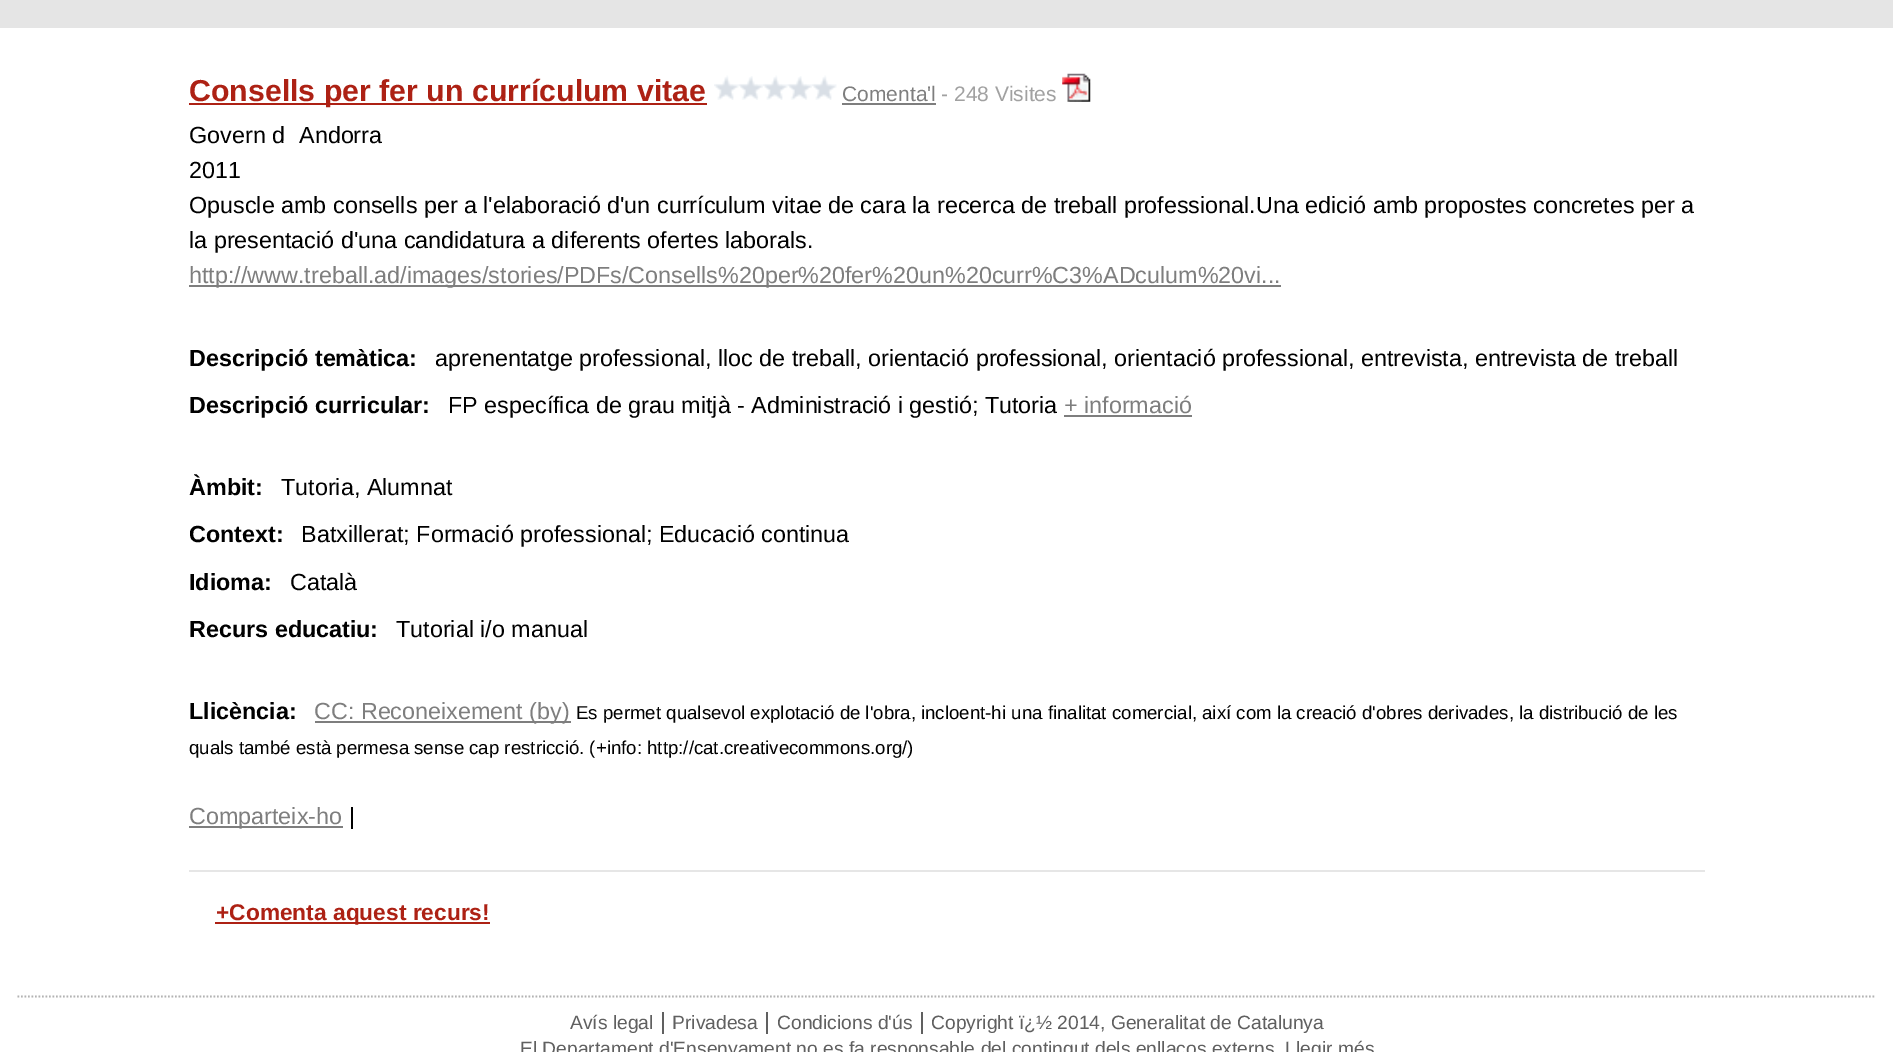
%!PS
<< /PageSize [1893 1052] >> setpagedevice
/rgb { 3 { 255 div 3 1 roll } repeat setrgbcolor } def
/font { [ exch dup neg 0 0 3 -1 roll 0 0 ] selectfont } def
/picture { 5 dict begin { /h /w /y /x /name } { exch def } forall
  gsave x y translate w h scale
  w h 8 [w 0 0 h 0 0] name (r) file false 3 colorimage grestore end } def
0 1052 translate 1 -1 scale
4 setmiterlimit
255 255 255 rgb
0 0 1893 1052 rectfill
229 229 229 rgb
0 0 1893 28 rectfill
173 33 20 rgb
189 103 518 2 rectfill
(img/1.rgb) 714 75 25 25 picture
(img/2.rgb) 738 76 25 24 picture
(img/3.rgb) 763 75 25 25 picture
(img/4.rgb) 787 76 25 24 picture
(img/1.rgb) 812 75 25 25 picture
126 126 126 rgb
842 103 94 2 rectfill
(img/5.rgb) 1062 73 29 29 picture
[
  [189 870 1516 2 230 230 230]
  [189 285 1092 2 126 126 126]
  [1064 415 128 2 126 126 126]
  [315 721 256 2 126 126 126]
  [189 826 154 2 126 126 126]
  [215 922 275 2 173 33 20]
] { aload pop rgb rectfill } forall
179 179 179 rgb
1.8 setlinewidth
[1.75 1.75] 0 setdash
17.5 996.5 moveto 1876 996.5 lineto stroke
/LiberationSans-Bold 30.3 font
173 33 20 rgb
189 101 moveto (Consells per fer un currículum vitae) show
/LiberationSans-Regular 21 font
126 126 126 rgb
842 101 moveto (Comenta'l) show
161 161 161 rgb
941 101 moveto (- 248 Visites) show
/LiberationSans-Regular 23.33 font
0 0 0 rgb
[
  [(Govern d) 189 143]
  [(Andorra) 299 143]
  [(2011) 189 178]
  [(Opuscle amb consells per a l'elaboració d'un currículum vitae de cara la recerca de treball professional.Una edició amb propostes concretes per a) 189 213]
  [(la presentació d'una candidatura a diferents ofertes laborals.) 189 248]
] { aload pop moveto show } forall
126 126 126 rgb
189 283 moveto (http://www.treball.ad/images/stories/PDFs/Consells%20per%20fer%20un%20curr%C3%ADculum%20vi...) show
/LiberationSans-Bold 23.33 font
0 0 0 rgb
189 366 moveto (Descripció temàtica:) show
/LiberationSans-Regular 23.33 font
435 366 moveto (aprenentatge professional, lloc de treball, orientació professional, orientació professional, entrevista, entrevista de treball) show
/LiberationSans-Bold 23.33 font
189 413 moveto (Descripció curricular:) show
/LiberationSans-Regular 23.33 font
448 413 moveto (FP específica de grau mitjà - Administració i gestió; Tutoria) show
126 126 126 rgb
1064 413 moveto (+ informació) show
/LiberationSans-Bold 23.33 font
0 0 0 rgb
189 495 moveto (Àmbit:) show
/LiberationSans-Regular 23.33 font
281 495 moveto (Tutoria, Alumnat) show
/LiberationSans-Bold 23.33 font
189 542 moveto (Context:) show
/LiberationSans-Regular 23.33 font
301 542 moveto (Batxillerat; Formació professional; Educació continua) show
/LiberationSans-Bold 23.33 font
189 590 moveto (Idioma:) show
/LiberationSans-Regular 23.33 font
290 590 moveto (Català) show
/LiberationSans-Bold 23.33 font
189 637 moveto (Recurs educatiu:) show
/LiberationSans-Regular 23.33 font
396 637 moveto (Tutorial i/o manual) show
/LiberationSans-Bold 23.33 font
189 719 moveto (Llicència:) show
/LiberationSans-Regular 23.33 font
126 126 126 rgb
314 719 moveto (CC: Reconeixement \(by\)) show
/LiberationSans-Regular 18.67 font
0 0 0 rgb
576 719 moveto (Es permet qualsevol explotació de l'obra, incloent-hi una finalitat comercial, així com la creació d'obres derivades, la distribució de les) show
189 754 moveto (quals també està permesa sense cap restricció. \(+info: http://cat.creativecommons.org/\)) show
/LiberationSans-Regular 23.33 font
126 126 126 rgb
189 824 moveto (Comparteix-ho) show
0 0 0 rgb
349 824 moveto (|) show
/LiberationSans-Bold 22.75 font
173 33 20 rgb
216 920 moveto (+Comenta aquest recurs!) show
/LiberationSans-Regular 19.25 font
96 96 96 rgb
570 1029 moveto (Avís legal) show
/LiberationSans-Regular 23.33 font
660 1029 moveto (|) show
/LiberationSans-Regular 19.25 font
672 1029 moveto (Privadesa) show
/LiberationSans-Regular 23.33 font
764 1029 moveto (|) show
/LiberationSans-Regular 19.25 font
777 1029 moveto (Condicions d'ús) show
/LiberationSans-Regular 23.33 font
919 1029 moveto (|) show
/LiberationSans-Regular 19.25 font
931 1029 moveto (Copyright ï¿½ 2014, Generalitat de Catalunya) show
520 1055 moveto (El Departament d'Ensenyament no es fa responsable del contingut dels enllaços externs. Llegir més) show
showpage
